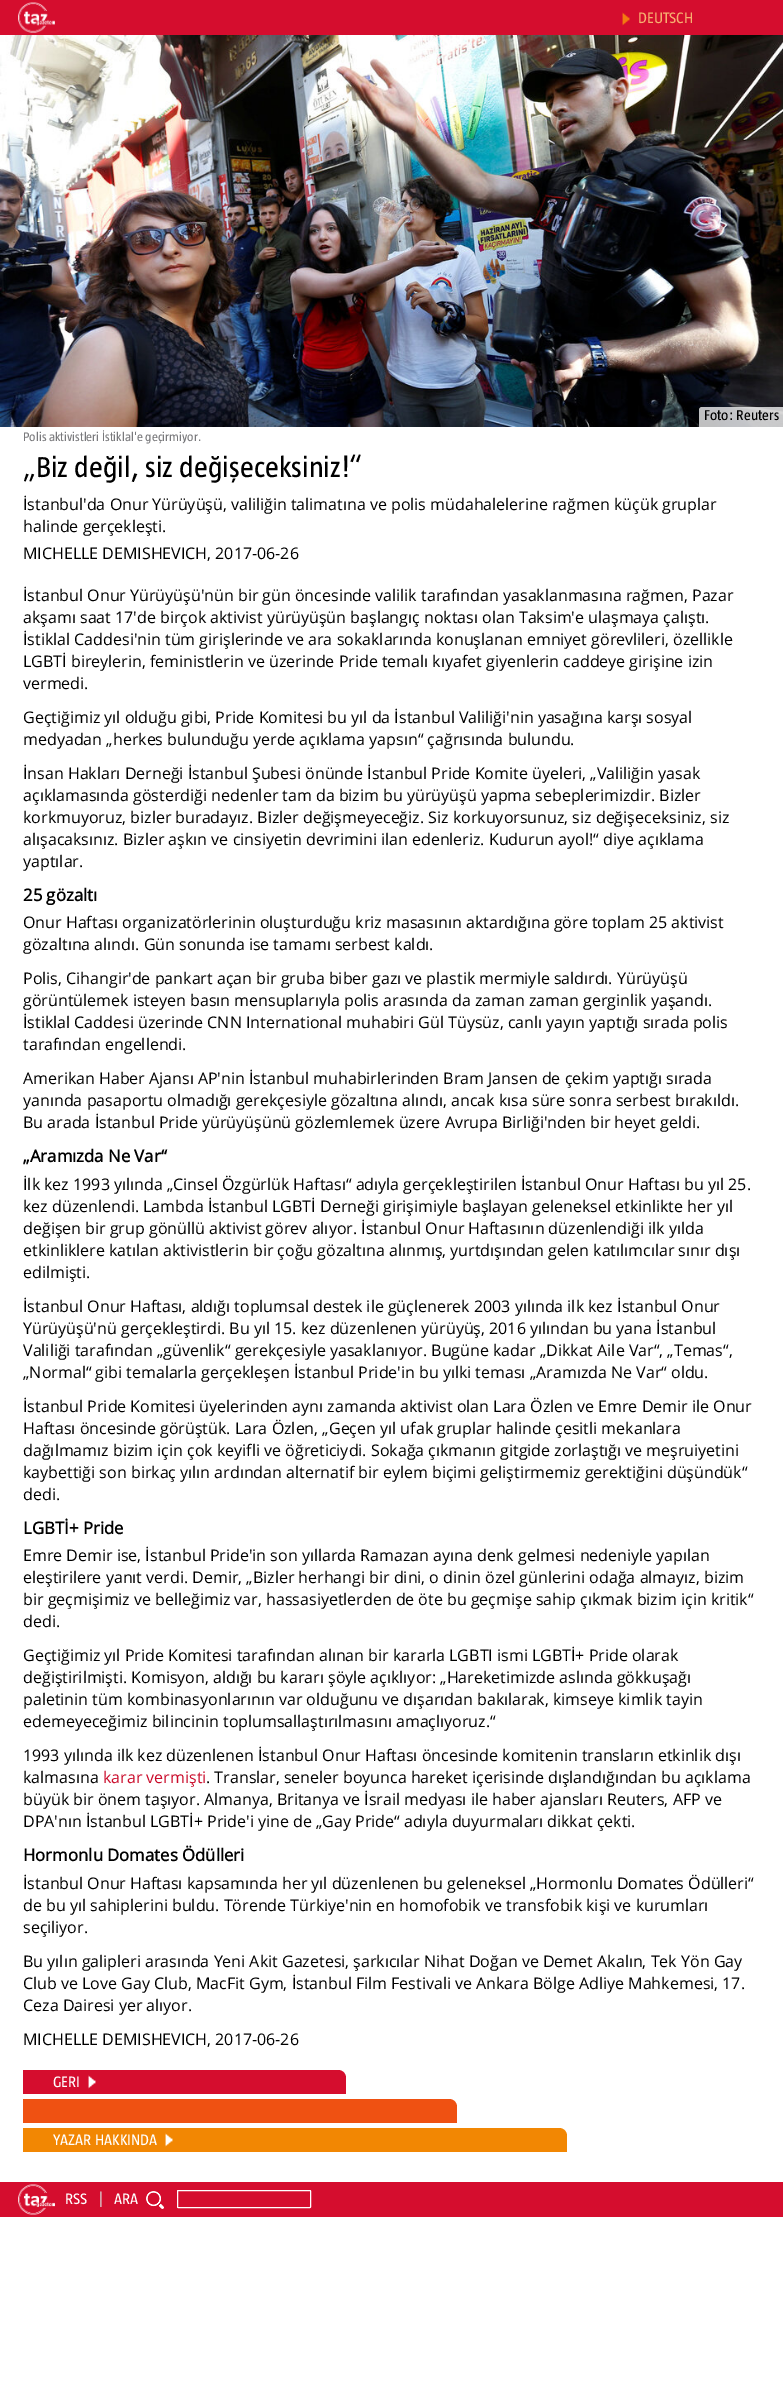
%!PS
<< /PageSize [783 2403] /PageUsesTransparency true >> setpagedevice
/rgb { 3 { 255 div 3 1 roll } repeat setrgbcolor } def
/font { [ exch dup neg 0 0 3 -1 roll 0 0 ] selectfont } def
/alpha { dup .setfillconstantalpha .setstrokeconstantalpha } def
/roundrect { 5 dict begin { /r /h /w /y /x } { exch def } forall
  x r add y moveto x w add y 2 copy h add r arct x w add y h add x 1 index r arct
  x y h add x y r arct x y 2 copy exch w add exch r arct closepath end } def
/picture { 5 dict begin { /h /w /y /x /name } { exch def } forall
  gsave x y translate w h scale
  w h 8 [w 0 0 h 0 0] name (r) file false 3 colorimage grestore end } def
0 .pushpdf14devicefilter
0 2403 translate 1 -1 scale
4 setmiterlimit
255 255 255 rgb
0 0 783 2403 rectfill
213 13 46 rgb
0 0 783 35 rectfill
(img/1.rgb) 18 2 37 31 picture
(img/2.rgb) 622 12 8 14 picture
(img/3.rgb) 0 35 783 392 picture
0.75 alpha
255 255 255 rgb
702 407 moveto 783 407 lineto 783 427 lineto 699 427 lineto 699 410 lineto 699 408.5 700.5 407 702 407 curveto closepath fill
1 alpha
213 13 46 rgb
23 2070 moveto 338 2070 lineto 342.5 2070 346 2073.5 346 2078 curveto 346 2094 lineto 23 2094 lineto closepath fill
(img/4.rgb) 88 2075 8 14 picture
239 81 18 rgb
23 2099 moveto 449 2099 lineto 453.5 2099 457 2102.5 457 2107 curveto 457 2123 lineto 23 2123 lineto closepath fill
242 135 3 rgb
23 2128 moveto 559 2128 lineto 563.5 2128 567 2131.5 567 2136 curveto 567 2152 lineto 23 2152 lineto closepath fill
(img/5.rgb) 165 2133 8 14 picture
213 13 46 rgb
0 2182 783 35 rectfill
(img/6.rgb) 18 2184 37 31 picture
(img/7.rgb) 146 2191 18 18 picture
255 255 255 rgb
177.5 2190.5 133 17 0.5 roundrect stroke
/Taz-Regular 15.5 font
247 175 111 rgb
638 23 moveto (DEUTSCH) show
/Taz-Regular 14.5 font
0 0 0 rgb
704 420 moveto (Foto: Reuters) show
/Taz-Regular 12.75 font
121 121 124 rgb
23 441 moveto (Polis aktivistleri İstiklal'e geçirmiyor.) show
/Taz-Regular 29.6 font
0 0 0 rgb
23 477 moveto („Biz değil, siz değişeceksiniz!“) show
/OpenSans-Regular 16 font
[
  [(İstanbul'da Onur Yürüyüşü, valiliğin talimatına ve polis müdahalelerine rağmen küçük gruplar) 23 510]
  [(halinde gerçekleşti.) 23 532]
  [(MICHELLE DEMISHEVICH, 2017-06-26) 23 559]
  [(İstanbul Onur Yürüyüşü'nün bir gün öncesinde valilik tarafından yasaklanmasına rağmen, Pazar) 23 601]
  [(akşamı saat 17'de birçok aktivist yürüyüşün başlangıç noktası olan Taksim'e ulaşmaya çalıştı.) 23 623]
  [(İstiklal Caddesi'nin tüm girişlerinde ve ara sokaklarında konuşlanan emniyet görevlileri, özellikle) 23 645]
  [(LGBTİ bireylerin, feministlerin ve üzerinde Pride temalı kıyafet giyenlerin caddeye girişine izin) 23 667]
  [(vermedi.) 23 689]
  [(Geçtiğimiz yıl olduğu gibi, Pride Komitesi bu yıl da İstanbul Valiliği'nin yasağına karşı sosyal) 23 723]
  [(medyadan „herkes bulunduğu yerde açıklama yapsın“ çağrısında bulundu.) 23 745]
  [(İnsan Hakları Derneği İstanbul Şubesi önünde İstanbul Pride Komite üyeleri, „Valiliğin yasak) 23 779]
  [(açıklamasında gösterdiği nedenler tam da bizim bu yürüyüşü yapma sebeplerimizdir. Bizler) 23 801]
  [(korkmuyoruz, bizler buradayız. Bizler değişmeyeceğiz. Siz korkuyorsunuz, siz değişeceksiniz, siz) 23 823]
  [(alışacaksınız. Bizler aşkın ve cinsiyetin devrimini ilan edenleriz. Kudurun ayol!“ diye açıklama) 23 845]
  [(yaptılar.) 23 867]
] { aload pop moveto show } forall
/OpenSans-Bold 16.75 font
23 901 moveto (25 gözaltı) show
/OpenSans-Regular 16 font
[
  [(Onur Haftası organizatörlerinin oluşturduğu kriz masasının aktardığına göre toplam 25 aktivist) 23 928]
  [(gözaltına alındı. Gün sonunda ise tamamı serbest kaldı.) 23 950]
  [(Polis, Cihangir'de pankart açan bir gruba biber gazı ve plastik mermiyle saldırdı. Yürüyüşü) 23 984]
  [(görüntülemek isteyen basın mensuplarıyla polis arasında da zaman zaman gerginlik yaşandı.) 23 1006]
  [(İstiklal Caddesi üzerinde CNN International muhabiri Gül Tüysüz, canlı yayın yaptığı sırada polis) 23 1028]
  [(tarafından engellendi.) 23 1050]
  [(Amerikan Haber Ajansı AP'nin İstanbul muhabirlerinden Bram Jansen de çekim yaptığı sırada) 23 1084]
  [(yanında pasaportu olmadığı gerekçesiyle gözaltına alındı, ancak kısa süre sonra serbest bırakıldı.) 23 1106]
  [(Bu arada İstanbul Pride yürüyüşünü gözlemlemek üzere Avrupa Birliği'nden bir heyet geldi.) 23 1128]
] { aload pop moveto show } forall
/OpenSans-Bold 16.75 font
23 1162 moveto („Aramızda Ne Var“) show
/OpenSans-Regular 16 font
[
  [(İlk kez 1993 yılında „Cinsel Özgürlük Haftası“ adıyla gerçekleştirilen İstanbul Onur Haftası bu yıl 25.) 23 1190]
  [(kez düzenlendi. Lambda İstanbul LGBTİ Derneği girişimiyle başlayan geleneksel etkinlikte her yıl) 23 1212]
  [(değişen bir grup gönüllü aktivist görev alıyor. İstanbul Onur Haftasının düzenlendiği ilk yılda) 23 1234]
  [(etkinliklere katılan aktivistlerin bir çoğu gözaltına alınmış, yurtdışından gelen katılımcılar sınır dışı) 23 1256]
  [(edilmişti.) 23 1278]
  [(İstanbul Onur Haftası, aldığı toplumsal destek ile güçlenerek 2003 yılında ilk kez İstanbul Onur) 23 1312]
  [(Yürüyüşü'nü gerçekleştirdi. Bu yıl 15. kez düzenlenen yürüyüş, 2016 yılından bu yana İstanbul) 23 1334]
  [(Valiliği tarafından „güvenlik“ gerekçesiyle yasaklanıyor. Bugüne kadar „Dikkat Aile Var“, „Temas“,) 23 1356]
  [(„Normal“ gibi temalarla gerçekleşen İstanbul Pride'in bu yılki teması „Aramızda Ne Var“ oldu.) 23 1378]
  [(İstanbul Pride Komitesi üyelerinden aynı zamanda aktivist olan Lara Özlen ve Emre Demir ile Onur) 23 1412]
  [(Haftası öncesinde görüştük. Lara Özlen, „Geçen yıl ufak gruplar halinde çesitli mekanlara) 23 1434]
  [(dağılmamız bizim için çok keyifli ve öğreticiydi. Sokağa çıkmanın gitgide zorlaştığı ve meşruiyetini) 23 1456]
  [(kaybettiği son birkaç yılın ardından alternatif bir eylem biçimi geliştirmemiz gerektiğini düşündük“) 23 1478]
  [(dedi.) 23 1500]
] { aload pop moveto show } forall
/OpenSans-Bold 16.75 font
23 1534 moveto (LGBTİ+ Pride) show
/OpenSans-Regular 16 font
[
  [(Emre Demir ise, İstanbul Pride'in son yıllarda Ramazan ayına denk gelmesi nedeniyle yapılan) 23 1561]
  [(eleştirilere yanıt verdi. Demir, „Bizler herhangi bir dini, o dinin özel günlerini odağa almayız, bizim) 23 1583]
  [(bir geçmişimiz ve belleğimiz var, hassasiyetlerden de öte bu geçmişe sahip çıkmak bizim için kritik“) 23 1605]
  [(dedi.) 23 1627]
  [(Geçtiğimiz yıl Pride Komitesi tarafından alınan bir kararla LGBTI ismi LGBTİ+ Pride olarak) 23 1661]
  [(değiştirilmişti. Komisyon, aldığı bu kararı şöyle açıklıyor: „Hareketimizde aslında gökkuşağı) 23 1683]
  [(paletinin tüm kombinasyonlarının var olduğunu ve dışarıdan bakılarak, kimseye kimlik tayin) 23 1705]
  [(edemeyeceğimiz bilincinin toplumsallaştırılmasını amaçlıyoruz.“) 23 1727]
  [(1993 yılında ilk kez düzenlenen İstanbul Onur Haftası öncesinde komitenin transların etkinlik dışı) 23 1761]
  [(kalmasına) 23 1783]
] { aload pop moveto show } forall
202 12 43 rgb
103 1783 moveto (karar vermişti) show
0 0 0 rgb
[
  [(. Translar, seneler boyunca hareket içerisinde dışlandığından bu açıklama) 206 1783]
  [(büyük bir önem taşıyor. Almanya, Britanya ve İsrail medyası ile haber ajansları Reuters, AFP ve) 23 1805]
  [(DPA'nın İstanbul LGBTİ+ Pride'i yine de „Gay Pride“ adıyla duyurmaları dikkat çekti.) 23 1827]
] { aload pop moveto show } forall
/OpenSans-Bold 16.75 font
23 1861 moveto (Hormonlu Domates Ödülleri) show
/OpenSans-Regular 16 font
[
  [(İstanbul Onur Haftası kapsamında her yıl düzenlenen bu geleneksel „Hormonlu Domates Ödülleri“) 23 1889]
  [(de bu yıl sahiplerini buldu. Törende Türkiye'nin en homofobik ve transfobik kişi ve kurumları) 23 1911]
  [(seçiliyor.) 23 1933]
  [(Bu yılın galipleri arasında Yeni Akit Gazetesi, şarkıcılar Nihat Doğan ve Demet Akalın, Tek Yön Gay) 23 1967]
  [(Club ve Love Gay Club, MacFit Gym, İstanbul Film Festivali ve Ankara Bölge Adliye Mahkemesi, 17.) 23 1989]
  [(Ceza Dairesi yer alıyor.) 23 2011]
  [(MICHELLE DEMISHEVICH, 2017-06-26) 23 2045]
] { aload pop moveto show } forall
/Taz-Regular 15.5 font
255 255 255 rgb
[
  [(GERI) 53 2087]
  [(YAZAR HAKKINDA) 53 2145]
  [(RSS) 65 2204]
] { aload pop moveto show } forall
215 215 215 rgb
99 2204 moveto (|) show
255 255 255 rgb
114 2204 moveto (ARA) show
.poppdf14devicefilter showpage
